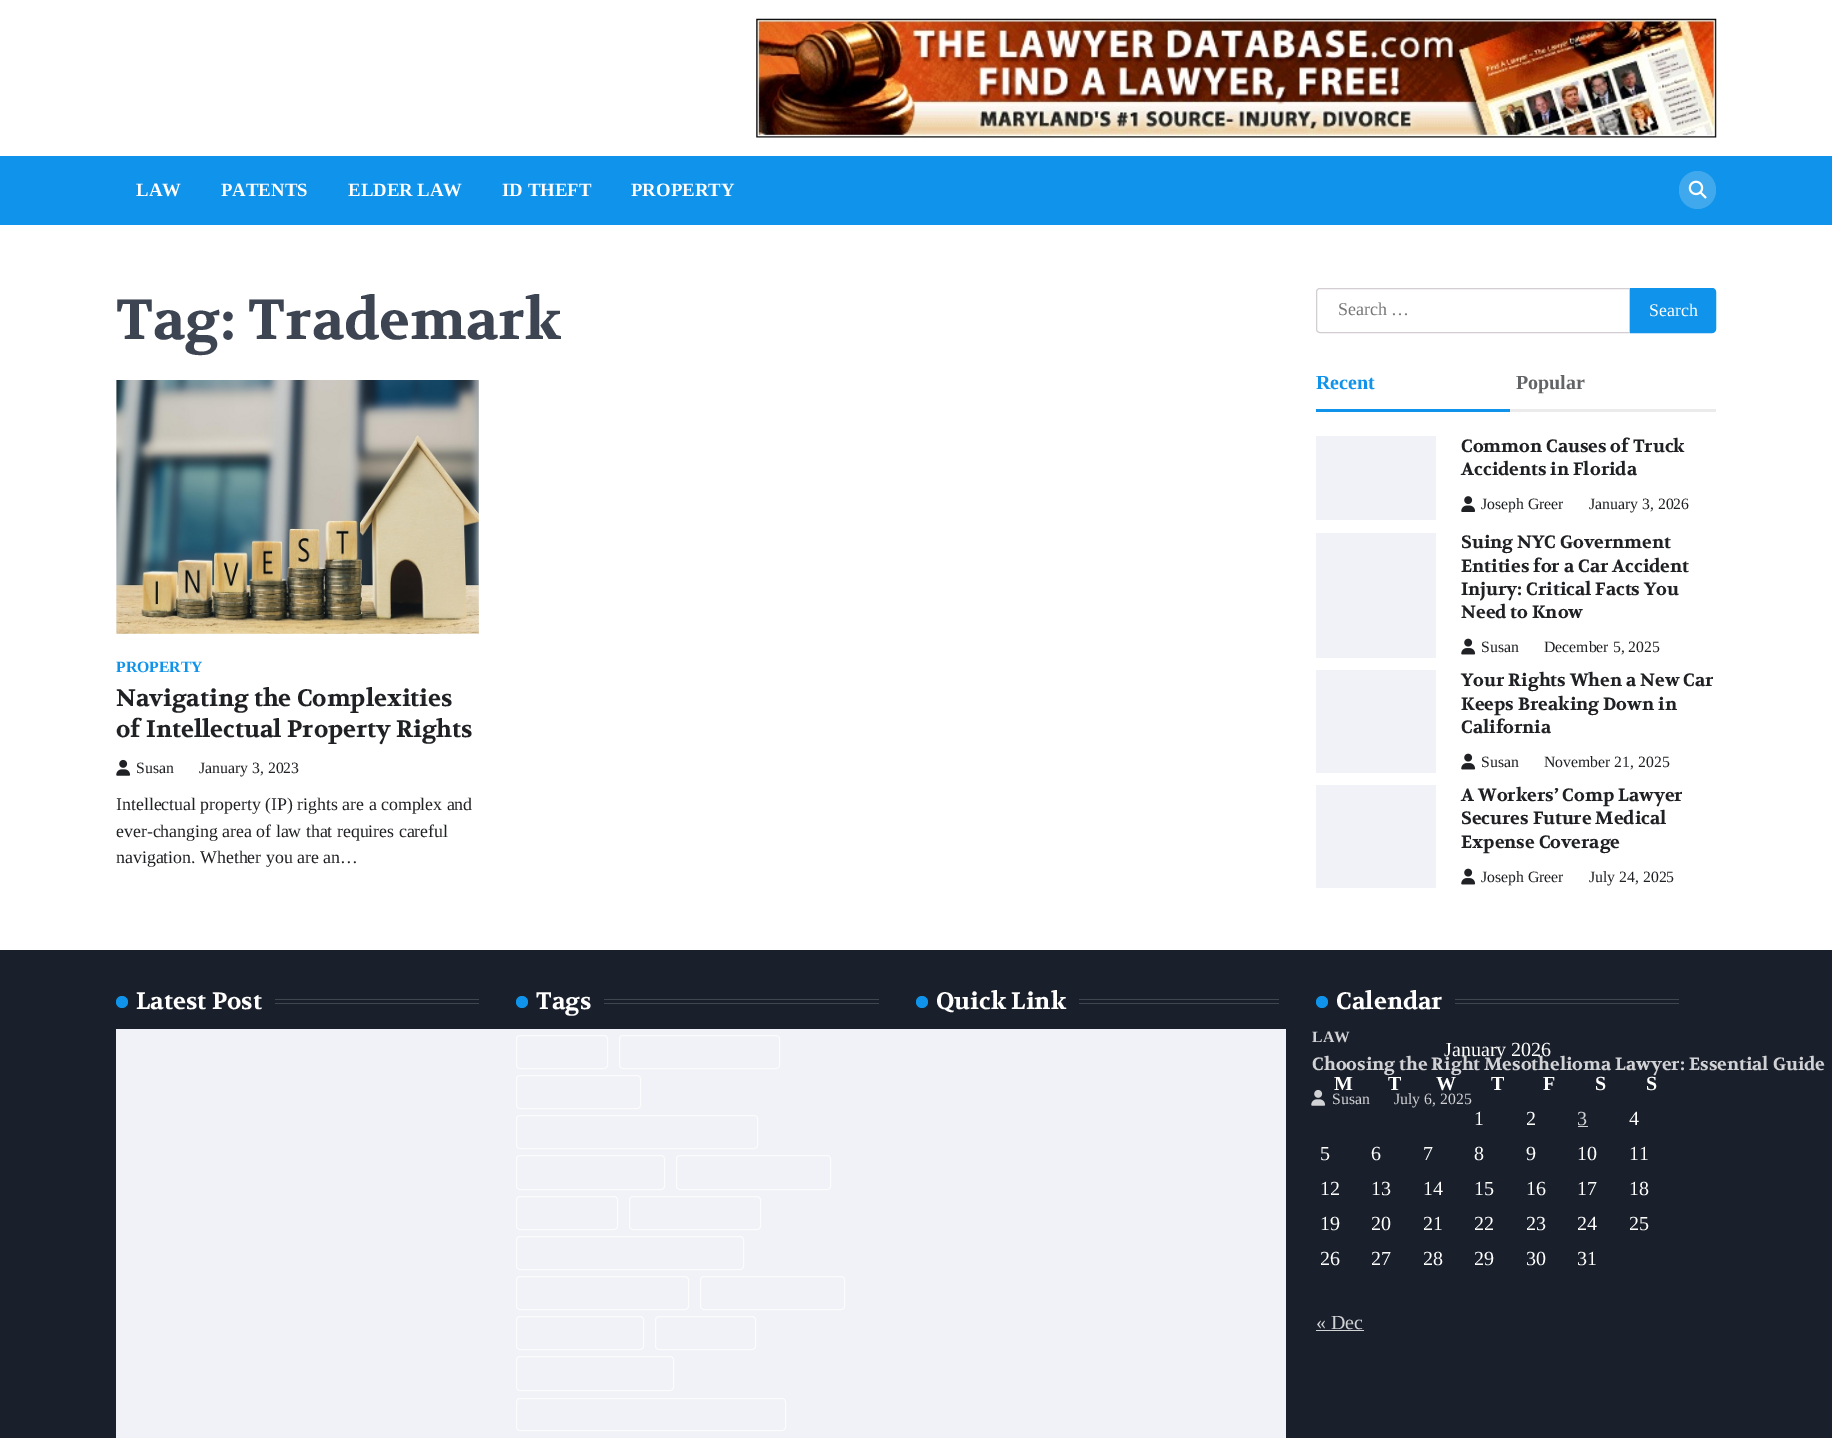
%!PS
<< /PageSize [1832 1438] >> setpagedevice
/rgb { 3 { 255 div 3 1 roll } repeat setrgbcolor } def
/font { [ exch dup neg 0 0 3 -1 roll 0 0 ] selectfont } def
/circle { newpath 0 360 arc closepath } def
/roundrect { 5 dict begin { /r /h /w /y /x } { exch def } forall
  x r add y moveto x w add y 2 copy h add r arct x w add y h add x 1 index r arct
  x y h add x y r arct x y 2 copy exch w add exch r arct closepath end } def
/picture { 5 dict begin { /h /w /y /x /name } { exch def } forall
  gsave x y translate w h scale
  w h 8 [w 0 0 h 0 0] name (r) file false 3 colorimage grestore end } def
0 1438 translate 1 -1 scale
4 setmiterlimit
255 255 255 rgb
0 0 1832 1438 rectfill
(img/1.rgb) 756 18 961 120 picture
16 147 234 rgb
0 156 1832 69 rectfill
64 169 238 rgb
1679 171 37 38 18.5 roundrect fill
(img/2.rgb) 1688 180 19 19 picture
240 242 247 rgb
116 380 363 254 rectfill
(img/3.rgb) 116 380 363 254 picture
(img/4.rgb) 116 759 15 17 picture
211 206 210 rgb
1320 288.5 moveto 1629.5 288.5 lineto 1629.5 332.5 lineto 1320 332.5 lineto 1318 332.5 1316.5 331 1316.5 329 curveto 1316.5 292 lineto 1316.5 290 1318 288.5 1320 288.5 curveto closepath stroke
16 147 234 rgb
1630.5 288.5 moveto 1712 288.5 lineto 1714 288.5 1715.5 290 1715.5 292 curveto 1715.5 329 lineto 1715.5 331 1714 332.5 1712 332.5 curveto 1630.5 332.5 lineto closepath gsave fill grestore
stroke
[
  [1316 409 194 3 16 147 234]
  [1510 409 206 3 235 235 235]
  [1316 436 120 84 240 242 247]
] { aload pop rgb rectfill } forall
(img/5.rgb) 1461 496 15 16 picture
1316 533 120 125 rectfill
(img/6.rgb) 1461 638 15 17 picture
1316 670 120 103 rectfill
(img/6.rgb) 1461 753 15 17 picture
1316 785 120 103 rectfill
(img/6.rgb) 1461 868 15 17 picture
26 32 43 rgb
0 950 1832 488 rectfill
16 147 234 rgb
922 1002 6 circle fill
65 69 77 rgb
1079 999 200 1 rectfill
1079 1003 200 1 rectfill
16 147 234 rgb
1322 1002 6 circle fill
[
  [1455 999 224 1 65 69 77]
  [1455 1003 224 1 65 69 77]
  [1578 1126 10 1 209 210 213]
  [1316 1330 48 1 209 210 213]
] { aload pop rgb rectfill } forall
16 147 234 rgb
122 1002 6 circle fill
[
  [275 999 204 1 65 69 77]
  [275 1003 204 1 65 69 77]
  [116 1029 1170 409 240 242 247]
] { aload pop rgb rectfill } forall
(img/7.rgb) 1311 1089 15 17 picture
16 147 234 rgb
522 1002 6 circle fill
65 69 77 rgb
604 999 275 1 rectfill
604 1003 275 1 rectfill
252 252 253 rgb
516.5 1035.5 91 33 3.5 roundrect stroke
619.5 1035.5 160 33 3.5 roundrect stroke
516.5 1075.5 124 33 3.5 roundrect stroke
516.5 1115.5 241 33 3.5 roundrect stroke
516.5 1155.5 148 34 3.5 roundrect stroke
676.5 1155.5 154 34 3.5 roundrect stroke
516.5 1196.5 101 33 3.5 roundrect stroke
629.5 1196.5 131 33 3.5 roundrect stroke
516.5 1236.5 227 33 3.5 roundrect stroke
516.5 1276.5 172 33 3.5 roundrect stroke
700.5 1276.5 144 33 3.5 roundrect stroke
516.5 1316.5 127 33 3.5 roundrect stroke
655.5 1316.5 100 33 3.5 roundrect stroke
516.5 1356.5 157 34 3.5 roundrect stroke
516.5 1398.5 269 32 3.5 roundrect stroke
/LiberationSerif-Bold 18.75 font
255 255 255 rgb
[
  [(LAW) 136 196]
  [(PATENTS) 221 196]
  [(ELDER LAW) 348 196]
  [(ID THEFT) 502 196]
  [(PROPERTY) 631 196]
] { aload pop moveto show } forall
/Volkhov-Bold 56.25 font
61 68 82 rgb
116 339 moveto (Tag: Trademark) show
/LiberationSerif-Bold 15.75 font
16 147 234 rgb
116 672 moveto (PROPERTY) show
/Volkhov-Bold 23.75 font
32 33 36 rgb
116 706 moveto (Navigating the Complexities) show
116 737 moveto (of Intellectual Property Rights) show
/LiberationSerif-Regular 15.75 font
136 773 moveto (Susan) show
199 773 moveto (January 3, 2023) show
/LiberationSerif-Regular 17.8 font
[
  [(Intellectual property \(IP\) rights are a complex and) 116 810]
  [(ever-changing area of law that requires careful) 116 837]
  [(navigation. Whether you are an…) 116 863]
] { aload pop moveto show } forall
/LiberationSerif-Regular 18 font
117 117 117 rgb
1338 315 moveto (Search …) show
/LiberationSerif-Regular 17.8 font
255 255 255 rgb
1649 316 moveto (Search) show
/LiberationSerif-Bold 20 font
16 147 234 rgb
1316 389 moveto (Recent) show
99 100 102 rgb
1516 389 moveto (Popular) show
/Volkhov-Bold 17.8 font
32 33 36 rgb
1461 452 moveto (Common Causes of Truck) show
1461 475 moveto (Accidents in Florida) show
/LiberationSerif-Regular 15.75 font
1481 509 moveto (Joseph Greer) show
1589 509 moveto (January 3, 2026) show
/Volkhov-Bold 17.8 font
[
  [(Suing NYC Government) 1461 548]
  [(Entities for a Car Accident) 1461 572]
  [(Injury: Critical Facts You) 1461 595]
  [(Need to Know) 1461 618]
] { aload pop moveto show } forall
/LiberationSerif-Regular 15.75 font
1481 652 moveto (Susan) show
1544 652 moveto (December 5, 2025) show
/Volkhov-Bold 17.8 font
[
  [(Your Rights When a New Car) 1461 686]
  [(Keeps Breaking Down in) 1461 710]
  [(California) 1461 733]
] { aload pop moveto show } forall
/LiberationSerif-Regular 15.75 font
1481 767 moveto (Susan) show
1544 767 moveto (November 21, 2025) show
/Volkhov-Bold 17.8 font
[
  [(A Workers’ Comp Lawyer) 1461 801]
  [(Secures Future Medical) 1461 824]
  [(Expense Coverage) 1461 848]
] { aload pop moveto show } forall
/LiberationSerif-Regular 15.75 font
1481 882 moveto (Joseph Greer) show
1589 882 moveto (July 24, 2025) show
/Volkhov-Bold 23.75 font
255 255 255 rgb
936 1009 moveto (Quick Link) show
1336 1009 moveto (Calendar) show
/LiberationSerif-Regular 20 font
1444 1056 moveto (January 2026) show
/LiberationSerif-Bold 20 font
[
  [(M) 1334 1090]
  [(T) 1388 1090]
  [(W) 1436 1090]
  [(T) 1491 1090]
  [(F) 1543 1090]
  [(S) 1595 1090]
  [(S) 1646 1090]
] { aload pop moveto show } forall
/LiberationSerif-Regular 20 font
1474 1125 moveto (1) show
1526 1125 moveto (2) show
209 210 213 rgb
1577 1125 moveto (3) show
255 255 255 rgb
[
  [(4) 1629 1125]
  [(5) 1320 1160]
  [(6) 1371 1160]
  [(7) 1423 1160]
  [(8) 1474 1160]
  [(9) 1526 1160]
  [(10) 1577 1160]
  [(11) 1629 1160]
  [(12) 1320 1195]
  [(13) 1371 1195]
  [(14) 1423 1195]
  [(15) 1474 1195]
  [(16) 1526 1195]
  [(17) 1577 1195]
  [(18) 1629 1195]
  [(19) 1320 1230]
  [(20) 1371 1230]
  [(21) 1423 1230]
  [(22) 1474 1230]
  [(23) 1526 1230]
  [(24) 1577 1230]
  [(25) 1629 1230]
  [(26) 1320 1265]
  [(27) 1371 1265]
  [(28) 1423 1265]
  [(29) 1474 1265]
  [(30) 1526 1265]
  [(31) 1577 1265]
] { aload pop moveto show } forall
209 210 213 rgb
1316 1329 moveto (« Dec) show
/Volkhov-Bold 23.75 font
255 255 255 rgb
136 1009 moveto (Latest Post) show
/LiberationSerif-Bold 15.75 font
209 210 213 rgb
1312 1042 moveto (LAW) show
/Volkhov-Bold 17.8 font
1312 1070 moveto (Choosing the Right Mesothelioma Lawyer: Essential Guide) show
/LiberationSerif-Regular 15.75 font
1332 1104 moveto (Susan) show
1394 1104 moveto (July 6, 2025) show
/Volkhov-Bold 23.75 font
255 255 255 rgb
536 1009 moveto (Tags) show
showpage
